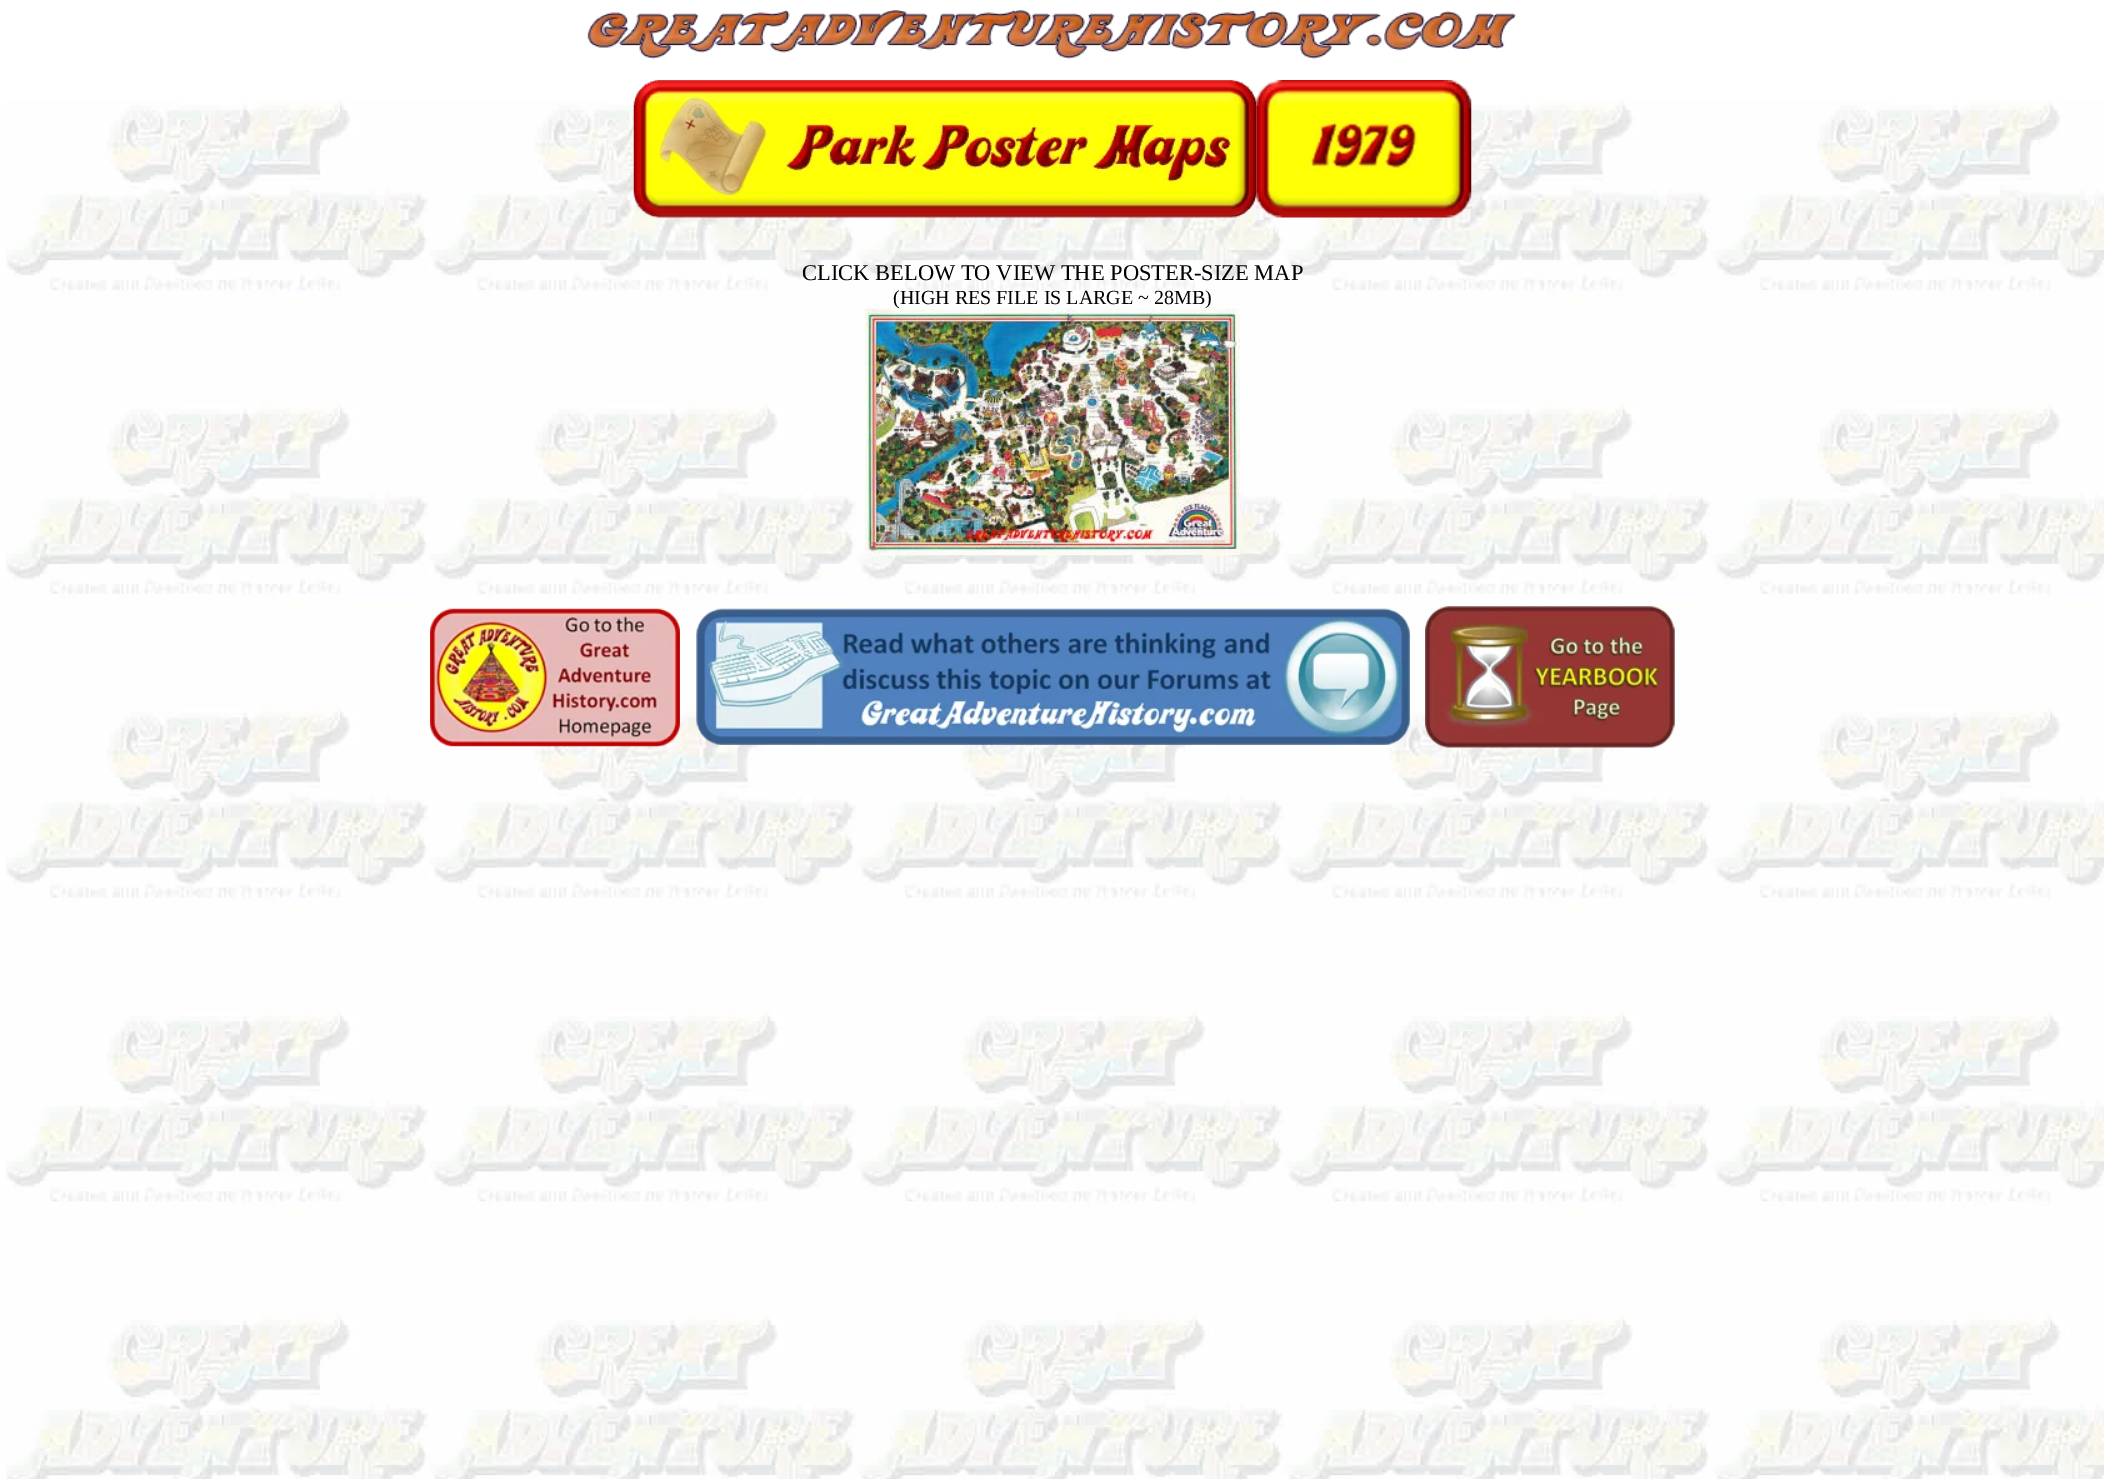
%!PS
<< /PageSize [2104 1479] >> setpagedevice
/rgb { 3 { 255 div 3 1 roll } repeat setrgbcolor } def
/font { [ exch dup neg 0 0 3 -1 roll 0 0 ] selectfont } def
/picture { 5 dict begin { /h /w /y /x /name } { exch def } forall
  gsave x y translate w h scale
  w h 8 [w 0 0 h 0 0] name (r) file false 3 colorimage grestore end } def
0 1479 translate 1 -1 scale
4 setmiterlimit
255 255 255 rgb
0 0 2104 1479 rectfill
(img/1.rgb) 6 100 2098 1379 picture
(img/2.rgb) 587 10 929 49 picture
(img/3.rgb) 633 80 624 138 picture
(img/4.rgb) 1256 80 216 138 picture
(img/6.rgb) 430 608 250 139 picture
(img/7.rgb) 696 608 714 137 picture
(img/8.rgb) 1425 606 250 142 picture
/LiberationSerif-Regular 22.5 font
0 0 0 rgb
802 280 moveto (CLICK BELOW TO VIEW THE POSTER-SIZE MAP) show
/LiberationSerif-Regular 20 font
893 304 moveto (\(HIGH RES FILE IS LARGE ~ 28MB\)) show
(img/5.rgb) 865 308 375 247 picture
showpage
